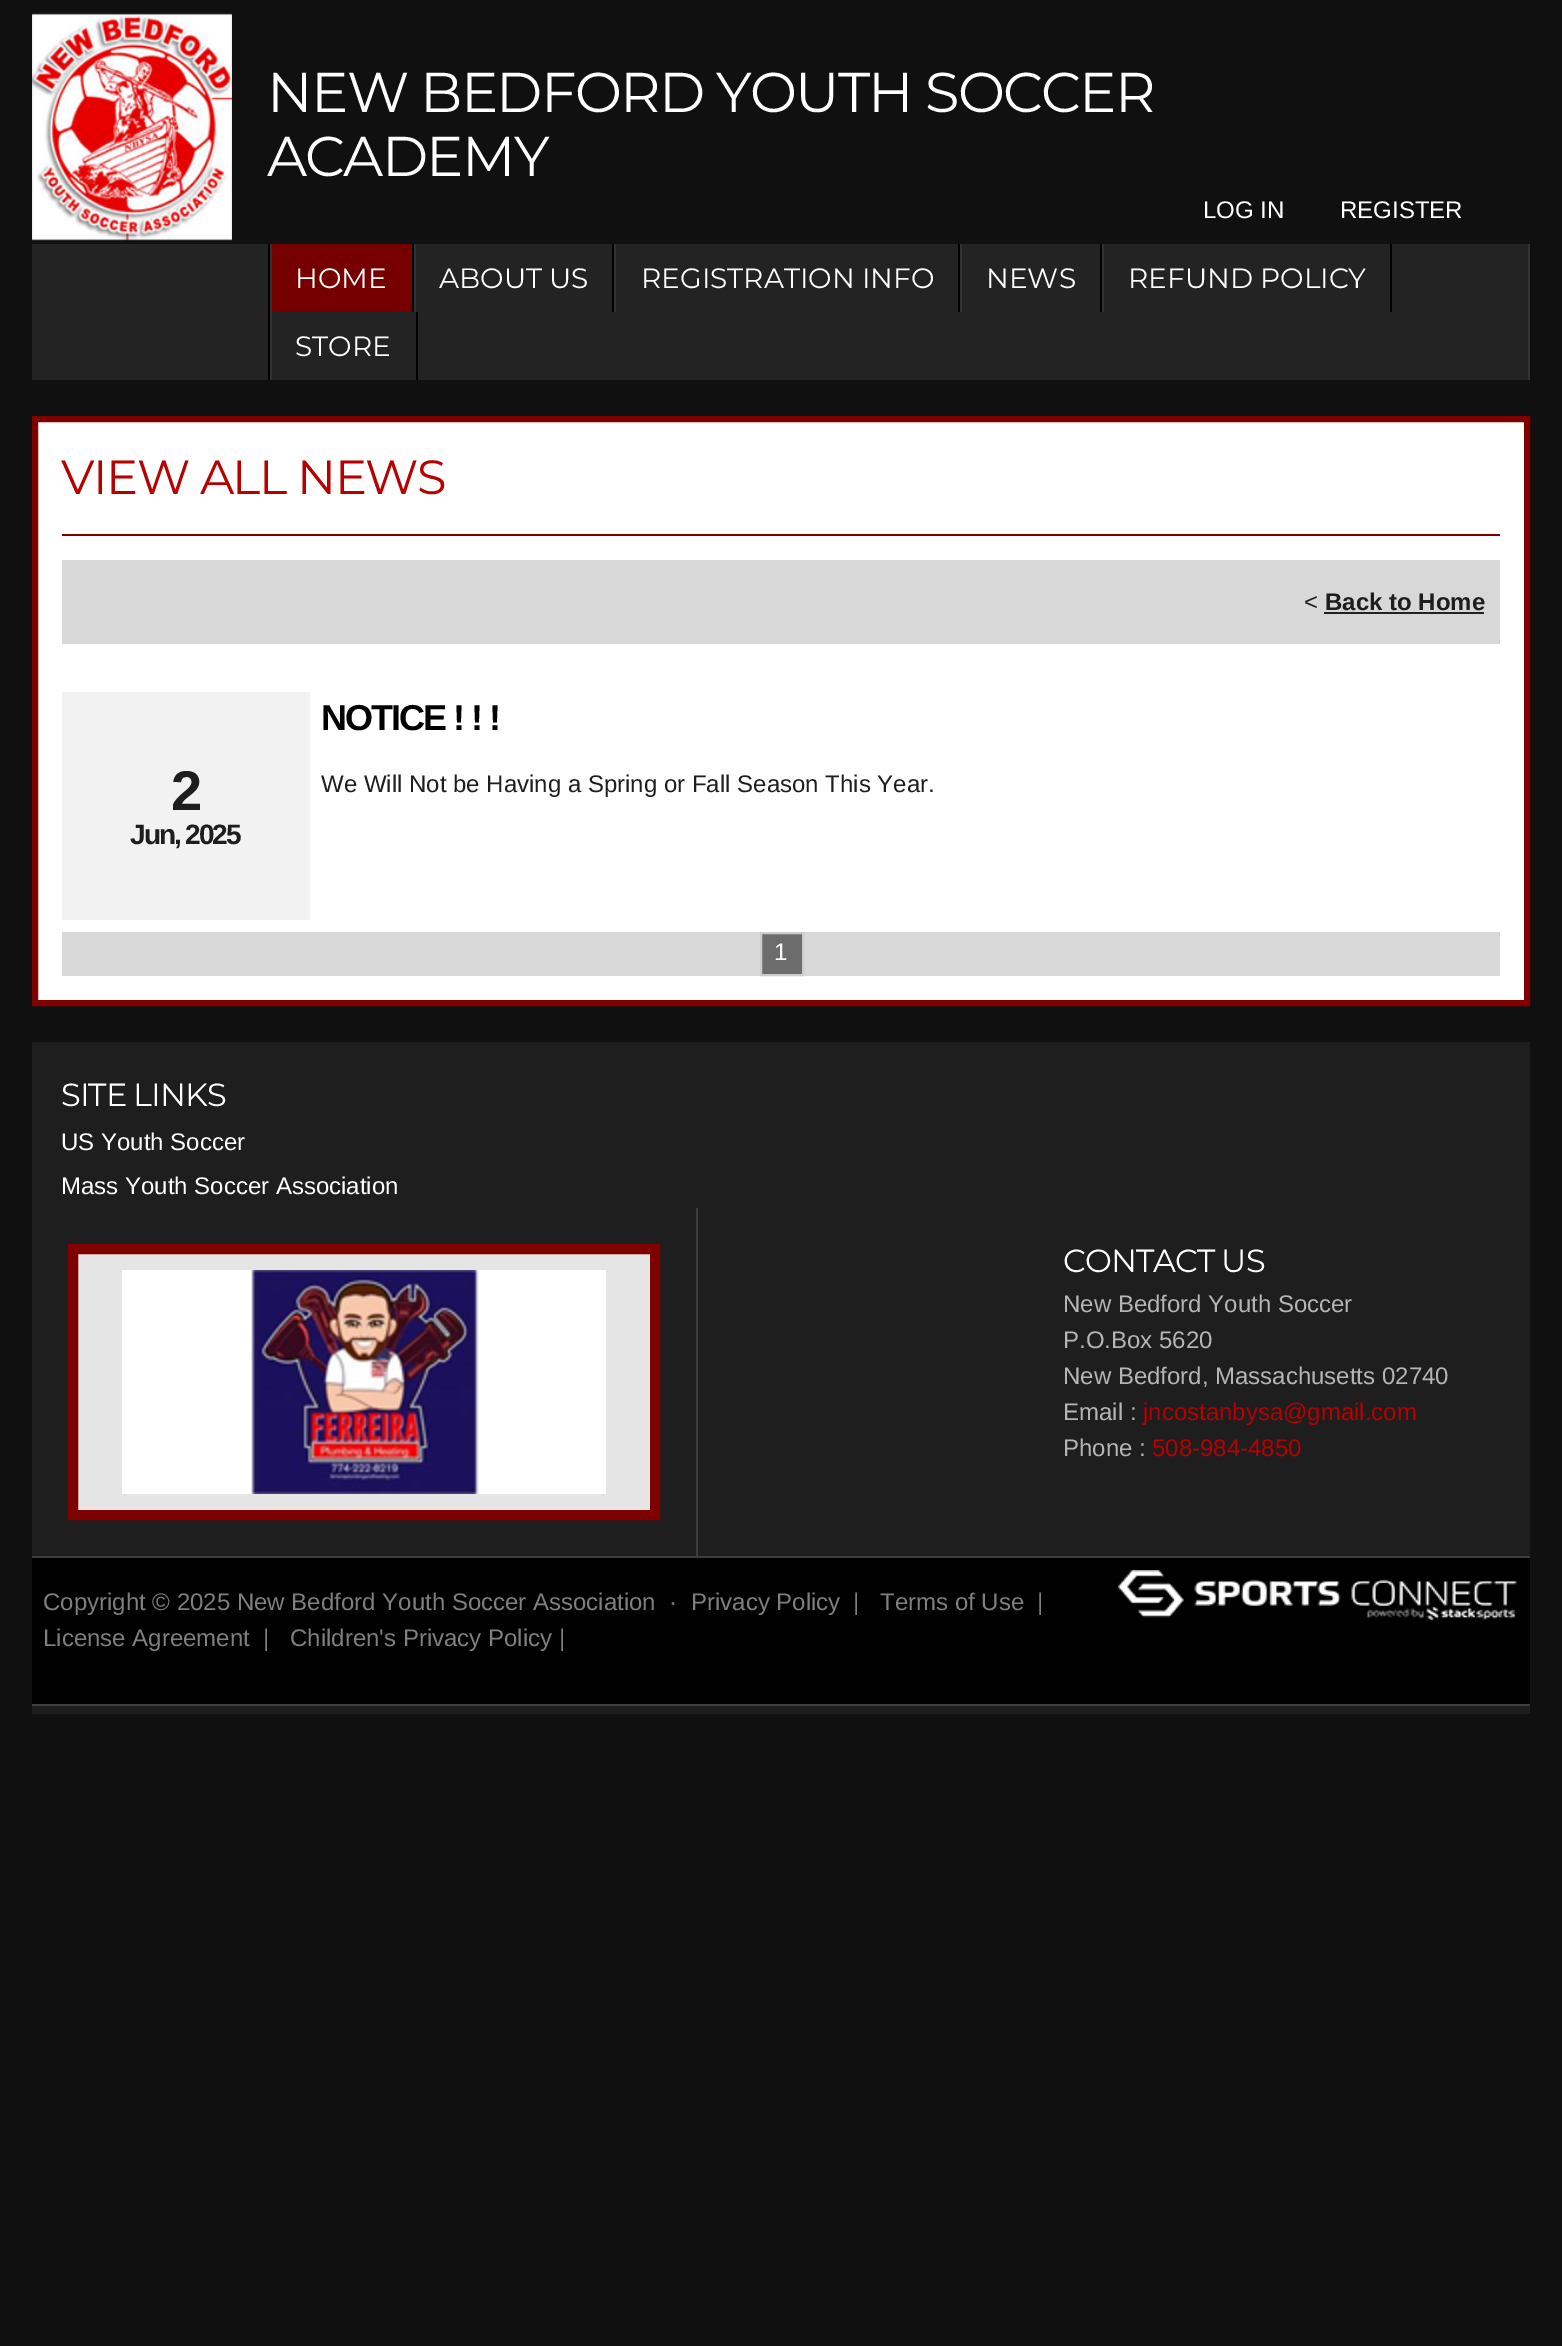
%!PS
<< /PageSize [1562 2346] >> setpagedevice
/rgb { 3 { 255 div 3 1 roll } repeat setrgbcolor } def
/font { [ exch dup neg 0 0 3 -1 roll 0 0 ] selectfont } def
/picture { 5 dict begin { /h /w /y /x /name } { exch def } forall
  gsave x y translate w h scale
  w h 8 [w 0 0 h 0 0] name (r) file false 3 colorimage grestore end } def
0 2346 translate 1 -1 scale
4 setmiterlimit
16 16 16 rgb
0 0 1562 2346 rectfill
(img/1.rgb) 32 13 200 228 picture
[
  [32 244 1496 136 35 35 35]
  [1528 244 2 136 50 50 50]
  [268 244 2 136 0 0 0]
  [272 244 140 68 118 0 0]
  [412 244 2 68 0 0 0]
  [270 244 2 136 50 50 50]
  [612 244 2 68 0 0 0]
  [414 244 2 68 50 50 50]
  [958 244 2 68 0 0 0]
  [614 244 2 68 50 50 50]
  [1100 244 2 68 0 0 0]
  [960 244 2 68 50 50 50]
  [1390 244 2 68 0 0 0]
  [1102 244 2 68 50 50 50]
  [416 312 2 68 0 0 0]
] { aload pop rgb rectfill } forall
255 255 255 rgb
35 419 moveto 1527 419 lineto 1527 1003 lineto 35 1003 lineto closepath gsave fill grestore
127 0 0 rgb
6 setlinewidth
stroke
[
  [62 534 1438 2 127 0 0]
  [62 560 1438 84 216 216 216]
  [1324 612 160 2 34 34 34]
  [62 692 248 228 242 242 242]
  [62 932 1438 44 216 216 216]
] { aload pop rgb rectfill } forall
108 108 108 rgb
761 933 moveto 803 933 lineto 803 975 lineto 761 975 lineto closepath gsave fill grestore
204 204 204 rgb
2 setlinewidth
stroke
30 30 30 rgb
32 1042 1498 672 rectfill
62 62 62 rgb
696 1208 2 348 rectfill
229 229 229 rgb
73 1249 moveto 655 1249 lineto 655 1515 lineto 73 1515 lineto closepath gsave fill grestore
127 0 0 rgb
10 setlinewidth
stroke
255 255 255 rgb
122 1270 484 224 rectfill
(img/2.rgb) 251 1270 228 224 picture
[
  [32 1558 1498 146 0 0 0]
  [32 1556 1498 2 62 62 62]
  [32 1704 1498 2 62 62 62]
] { aload pop rgb rectfill } forall
(img/3.rgb) 1118 1570 399 50 picture
/Montserrat-Regular 56 font
255 255 255 rgb
267 112 moveto -1.7 0 (NEW BEDFORD YOUTH SOCCER) ashow
267 176 moveto -1.7 0 (ACADEMY) ashow
/LiberationSans-Regular 24 font
1203 218 moveto (LOG IN) show
1340 218 moveto (REGISTER) show
/Montserrat-Regular 28 font
[
  [(HOME) 295 288]
  [(ABOUT US) 439 288]
  [(REGISTRATION INFO) 641 288]
  [(NEWS) 986 288]
  [(REFUND POLICY) 1128 288]
  [(STORE) 295 356]
] { aload pop moveto show } forall
/Montserrat-Regular 48 font
183 0 0 rgb
61 494 moveto -1.5 0 (VIEW ALL NEWS) ashow
/LiberationSans-Regular 24 font
30 30 30 rgb
1304 610 moveto (<) show
/LiberationSans-Bold 24 font
1325 610 moveto (Back to Home) show
/LiberationSans-Bold 36 font
0 0 0 rgb
321 730 moveto -2 0 (NOTICE ! ! !) ashow
/LiberationSans-Regular 24 font
30 30 30 rgb
321 792 moveto (We Will Not be Having a Spring or Fall Season This Year.) show
/LiberationSans-Bold 56 font
171 810 moveto -2 0 (2) ashow
/LiberationSans-Bold 28 font
130 844 moveto -2 0 (Jun, 2025) ashow
/LiberationSans-Regular 24 font
255 255 255 rgb
774 960 moveto (1) show
/Montserrat-Regular 32 font
61 1106 moveto -1 0 (SITE LINKS) ashow
/LiberationSans-Regular 24 font
61 1150 moveto (US Youth Soccer) show
61 1194 moveto (Mass Youth Soccer Association) show
/Montserrat-Regular 32 font
1063 1272 moveto -1 0 (CONTACT US) ashow
/LiberationSans-Regular 24 font
181 181 181 rgb
[
  [(New Bedford Youth Soccer) 1063 1312]
  [(P.O.Box 5620) 1063 1348]
  [(New Bedford, Massachusetts 02740) 1063 1384]
  [(Email :) 1063 1420]
] { aload pop moveto show } forall
183 0 0 rgb
1143 1420 moveto (jncostanbysa@gmail.com) show
181 181 181 rgb
1063 1456 moveto (Phone :) show
183 0 0 rgb
1152 1456 moveto (508-984-4850) show
127 127 127 rgb
[
  [(Copyright © 2025 New Bedford Youth Soccer Association) 43 1610]
  [(·) 669 1610]
  [(Privacy Policy) 691 1610]
  [(|) 853 1610]
  [(Terms of Use) 880 1610]
  [(|) 1037 1610]
  [(License Agreement) 43 1646]
  [(|) 263 1646]
  [(Children's Privacy Policy |) 290 1646]
] { aload pop moveto show } forall
showpage
